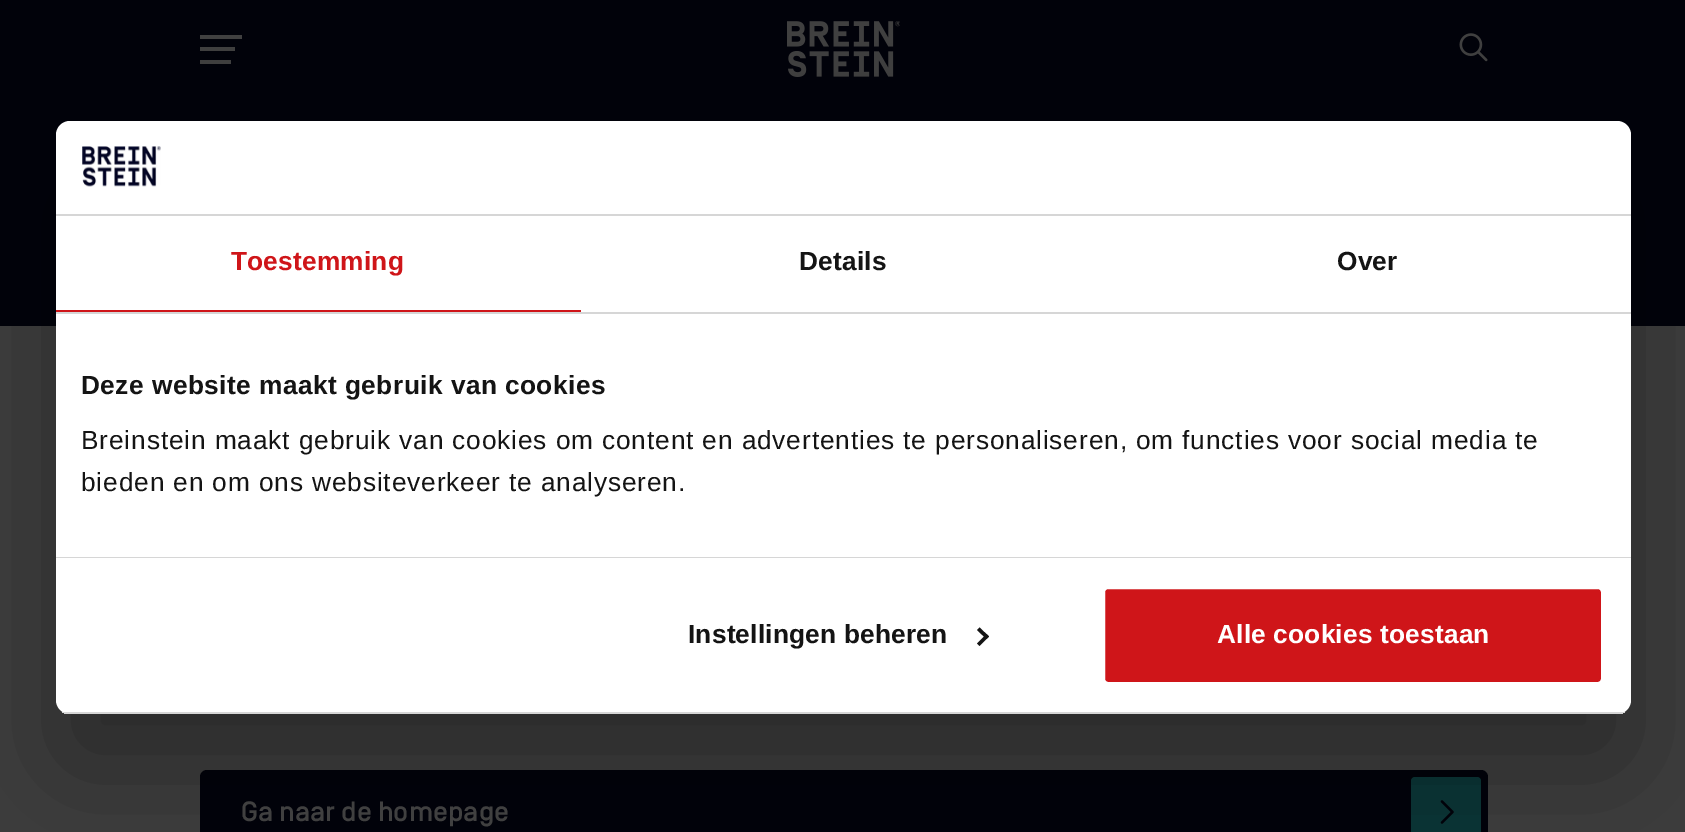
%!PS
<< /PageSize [1685 832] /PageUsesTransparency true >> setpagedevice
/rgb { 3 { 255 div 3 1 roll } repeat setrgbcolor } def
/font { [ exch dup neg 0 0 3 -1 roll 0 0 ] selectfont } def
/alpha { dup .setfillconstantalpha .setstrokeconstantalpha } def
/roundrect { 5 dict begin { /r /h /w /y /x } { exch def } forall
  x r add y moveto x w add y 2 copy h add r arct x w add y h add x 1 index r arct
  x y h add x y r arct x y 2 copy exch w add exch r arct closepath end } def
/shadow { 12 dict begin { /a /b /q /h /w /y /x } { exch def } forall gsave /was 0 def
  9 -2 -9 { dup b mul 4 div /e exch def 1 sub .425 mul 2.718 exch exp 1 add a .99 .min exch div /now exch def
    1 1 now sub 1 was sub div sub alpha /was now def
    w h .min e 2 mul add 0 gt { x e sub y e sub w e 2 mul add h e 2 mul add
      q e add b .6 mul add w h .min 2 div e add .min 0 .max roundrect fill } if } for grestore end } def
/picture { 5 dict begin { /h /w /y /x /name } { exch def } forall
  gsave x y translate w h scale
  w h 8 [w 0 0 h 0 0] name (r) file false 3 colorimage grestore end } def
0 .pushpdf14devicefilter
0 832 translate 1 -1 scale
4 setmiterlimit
61 61 61 rgb
0 0 1685 832 rectfill
[
  [0 0 1685 326 1 2 10]
  [200 35 42 4 64 64 64]
  [200 47 35 4 64 64 64]
  [200 60 31 4 64 64 64]
] { aload pop rgb rectfill } forall
(img/2.rgb) 787 21 113 56 picture
(img/3.rgb) 1459 33 29 29 picture
1 2 10 rgb
200 770 1288 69 7 roundrect fill
10 53 54 rgb
1411 777 70 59 4 roundrect fill
(img/4.rgb) 1440 800 14 24 picture
0 0 0 rgb
56 177 1575 593 14 59.5 0.3 shadow
255 255 255 rgb
56 121 1575 593 14 roundrect fill
214 214 214 rgb
56 214 1575 2 rectfill
(img/1.rgb) 82 146 79 41 picture
[
  [56 312 1575 2 214 214 214]
  [56 310 525 2 207 21 25]
  [56 557 1575 1 214 214 214]
] { aload pop rgb rectfill } forall
gsave
56 121 1575 593 14 roundrect clip newpath
56 712 1575 2 rectfill
grestore
20 20 20 rgb
979.5 627.5 moveto 989 636.5 lineto 986.5 639 lineto 977 630 lineto closepath fill
986.5 634 moveto 989 636.5 lineto 979.5 646 lineto 977 643.5 lineto closepath fill
207 21 25 rgb
1103 587 500 97 5 roundrect gsave fill grestore
255 255 255 rgb
4 setlinewidth
stroke
/LiberationSans-Bold 26.25 font
207 21 25 rgb
231 270 moveto 0.2 0 (Toestemming) ashow
20 20 20 rgb
799 270 moveto 0.2 0 (Details) ashow
1337 270 moveto 0.2 0 (Over) ashow
81 394 moveto 0.45 0 (Deze website maakt gebruik van cookies) ashow
/LiberationSans-Regular 26.25 font
81 449 moveto 0.88 0 (Breinstein maakt gebruik van cookies om content en advertenties te personaliseren, om functies voor social media te) ashow
81 491 moveto 0.88 0 (bieden en om ons websiteverkeer te analyseren.) ashow
/LiberationSans-Bold 26.25 font
688 643 moveto 0.2 0 (Instellingen beheren) ashow
255 255 255 rgb
1217 643 moveto 0.2 0 (Alle cookies toestaan) ashow
/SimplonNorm-Medium 28 font
64 64 64 rgb
241 821 moveto (Ga naar de homepage) show
.poppdf14devicefilter showpage
